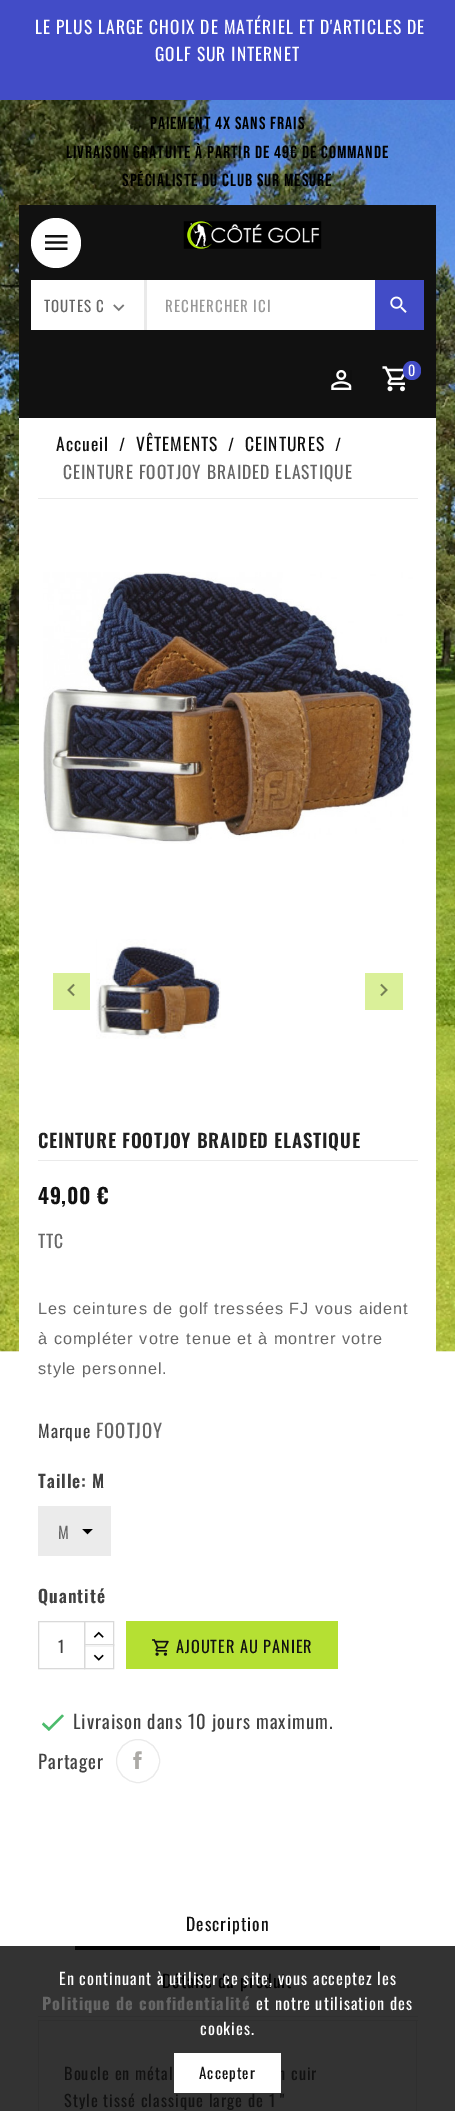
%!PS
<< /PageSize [455 2111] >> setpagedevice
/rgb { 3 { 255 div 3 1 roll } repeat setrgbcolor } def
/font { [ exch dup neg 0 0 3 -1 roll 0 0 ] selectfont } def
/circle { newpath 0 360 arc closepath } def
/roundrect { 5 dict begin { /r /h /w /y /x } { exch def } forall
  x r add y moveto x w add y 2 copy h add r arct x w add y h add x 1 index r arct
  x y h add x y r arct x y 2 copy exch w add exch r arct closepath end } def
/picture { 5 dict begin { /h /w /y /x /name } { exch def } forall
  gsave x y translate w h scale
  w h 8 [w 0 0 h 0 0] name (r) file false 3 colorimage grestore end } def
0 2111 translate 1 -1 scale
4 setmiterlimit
255 255 255 rgb
0 0 455 2111 rectfill
51 51 51 rgb
0 1946 455 165 rectfill
(img/1.rgb) 0 100 455 1252 picture
[
  [0 0 455 100 66 76 199]
  [19 418 417 934 255 255 255]
  [19 205 417 213 17 17 17]
] { aload pop rgb rectfill } forall
255 255 255 rgb
56 243 25 circle fill
(img/2.rgb) 45 235 23 15 picture
(img/3.rgb) 183 221 139 28 picture
31 280 344 50 rectfill
(img/4.rgb) 113 304 12 8 picture
234 234 234 rgb
144 280 3 50 rectfill
66 76 199 rgb
375 280 49 50 rectfill
(img/5.rgb) 390 296 17 17 picture
(img/6.rgb) 331 370 21 20 picture
(img/7.rgb) 382 366 23 26 picture
403 361 18 19 9 roundrect fill
234 234 234 rgb
38 498 380 1 rectfill
(img/8.rgb) 43 572 370 272 picture
(img/9.rgb) 96 939 125 100 picture
218 240 153 rgb
53 973 37 37 rectfill
(img/10.rgb) 67 983 8 14 picture
365 973 38 37 rectfill
(img/11.rgb) 380 983 8 14 picture
234 234 234 rgb
38 1160 380 1 rectfill
235 235 235 rgb
38 1506 73 50 rectfill
(img/12.rgb) 82 1529 11 6 picture
217 217 217 rgb
84.5 1621.5 29 24 rectstroke
255 255 255 rgb
85 1645 28 1 rectfill
217 217 217 rgb
84.5 1644.5 29 24 rectstroke
38.5 1621.5 46 47 rectstroke
(img/13.rgb) 93 1631 11 7 picture
(img/14.rgb) 93 1654 11 7 picture
181 224 51 rgb
126 1621 212 48 rectfill
(img/15.rgb) 152 1639 17 17 picture
76 187 108 rgb
49 1727.5 moveto 62 1714.5 lineto 64 1716 lineto 49 1731 lineto 42 1724.5 lineto 43.5 1722.5 lineto closepath fill
(img/16.rgb) 133 1751 9 18 picture
234 234 234 rgb
138 1761 21.5 circle stroke
[
  [38 2016 380 1 47 47 47]
  [38 2020 380 1 47 47 47]
  [75 1946 305 4 3 3 3]
  [416 2021 1 90 47 47 47]
  [38 2021 1 90 47 47 47]
] { aload pop rgb rectfill } forall
/Oswald-Regular 17.5 font
255 255 255 rgb
35 34 moveto 1 0 (LE PLUS LARGE CHOIX DE MATÉRIEL ET D'ARTICLES DE) ashow
155 61 moveto 1 0 (GOLF SUR INTERNET) ashow
/BebasNeue-Regular 17.5 font
0 0 0 rgb
150 129 moveto 1 0 (Paiement 4X sans frais) ashow
66 158 moveto 1 0 (Livraison gratuite à partir de 49€ de commande) ashow
122 186 moveto 1 0 (Spécialiste du club sur mesure) ashow
/Oswald-Regular 15 font
102 102 102 rgb
44 312 moveto 1 0 (TOUTES C) ashow
153 153 153 rgb
165 312 moveto 1 0 (RECHERCHER ICI) ashow
/Oswald-Regular 14 font
255 255 255 rgb
408 376 moveto 1 0 (0) ashow
/Oswald-Regular 17.5 font
17 17 17 rgb
56 451 moveto 1 0 (Accueil) ashow
/Oswald-Regular 16.25 font
119 451 moveto 1 0 (/) ashow
/Oswald-Regular 17.5 font
136 451 moveto 1 0 (VÊTEMENTS) ashow
/Oswald-Regular 16.25 font
228 451 moveto 1 0 (/) ashow
/Oswald-Regular 17.5 font
245 451 moveto 1 0 (CEINTURES) ashow
/Oswald-Regular 16.25 font
335 451 moveto 1 0 (/) ashow
/Oswald-Regular 17.5 font
102 102 102 rgb
63 479 moveto 1 0 (CEINTURE FOOTJOY BRAIDED ELASTIQUE) ashow
/Oswald-SemiBold 18.75 font
34 34 34 rgb
38 1148 moveto 0.75 0 (CEINTURE FOOTJOY BRAIDED ELASTIQUE) ashow
/Oswald-SemiBold 21 font
17 17 17 rgb
38 1204 moveto 0.75 0 (49,00 €) ashow
/Oswald-Regular 17.5 font
102 102 102 rgb
38 1248 moveto 1 0 (TTC) ashow
/LiberationSans-Regular 16.25 font
38 1314 moveto 1 0 (Les ceintures de golf tressées FJ vous aident) ashow
38 1344 moveto 1 0 (à compléter votre tenue et à montrer votre) ashow
38 1374 moveto 1 0 (style personnel.) ashow
/Oswald-Regular 17.5 font
65 65 65 rgb
38 1438 moveto 1 0 (Marque) ashow
/Oswald-Regular 18.75 font
102 102 102 rgb
96 1438 moveto 1 0 (FOOTJOY) ashow
/Oswald-SemiBold 17.5 font
65 65 65 rgb
38 1488 moveto 1 0 (Taille: M) ashow
/Oswald-Regular 16.25 font
102 102 102 rgb
58 1539 moveto 1 0 (M) ashow
/Oswald-SemiBold 17.5 font
65 65 65 rgb
38 1603 moveto 1 0 (Quantité) ashow
/Oswald-Regular 16.25 font
58 1653 moveto 1 0 (1) ashow
17 17 17 rgb
176 1653 moveto 1 0 (AJOUTER AU PANIER) ashow
/Oswald-Regular 18.75 font
65 65 65 rgb
73 1729 moveto 1 0 (Livraison dans 10 jours maximum.) ashow
38 1769 moveto 1 0 (Partager) ashow
/Oswald-Regular 17.5 font
17 17 17 rgb
186 1931 moveto 1 0 (Description) ashow
0 0 0 rgb
162 1988 moveto 1 0 (Détails du produit) ashow
/Oswald-Regular 16.25 font
17 17 17 rgb
64 2080 moveto 1 0 (Boucle en métal) ashow
278 2080 moveto 1 0 (n cuir) ashow
64 2107 moveto 1 0 (Style tissé classique large de 1 ") ashow
255 255 255 rgb
59 1985 moveto 1 0 (En continuant à utiliser ce site, vous acceptez les) ashow
/Oswald-Bold 16.25 font
102 102 102 rgb
42 2010 moveto 1 0 (Politique de confidentialité) ashow
/Oswald-Regular 16.25 font
255 255 255 rgb
256 2010 moveto 1 0 (et notre utilisation des) ashow
200 2035 moveto 1 0 (cookies.) ashow
174 2053 107 40 rectfill
/Oswald-Regular 15 font
17 17 17 rgb
199 2079 moveto 1 0 (Accepter) ashow
showpage
